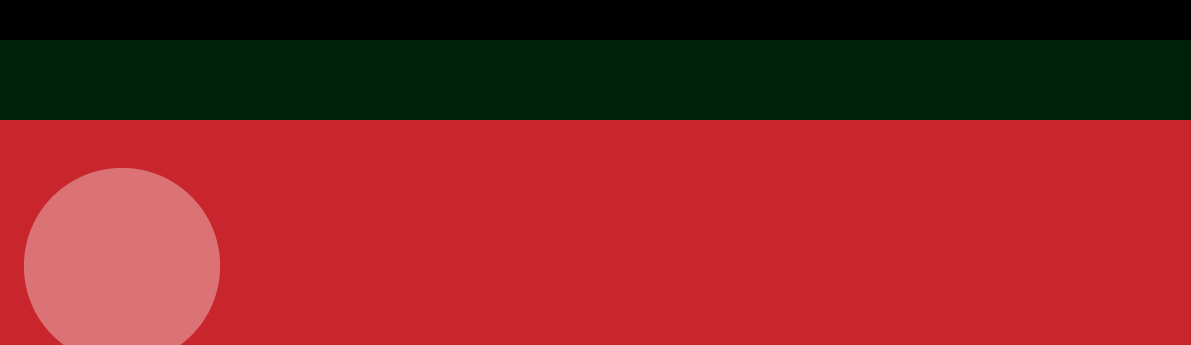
%!PS
<< /PageSize [1191 345] >> setpagedevice
/rgb { 3 { 255 div 3 1 roll } repeat setrgbcolor } def
/circle { newpath 0 360 arc closepath } def
0 345 translate 1 -1 scale
4 setmiterlimit
200 38 44 rgb
0 0 1191 345 rectfill
0 0 0 rgb
0 0 1191 40 rectfill
0 34 13 rgb
0 40 1191 80 rectfill
219 114 118 rgb
122 266 98 circle fill
showpage
